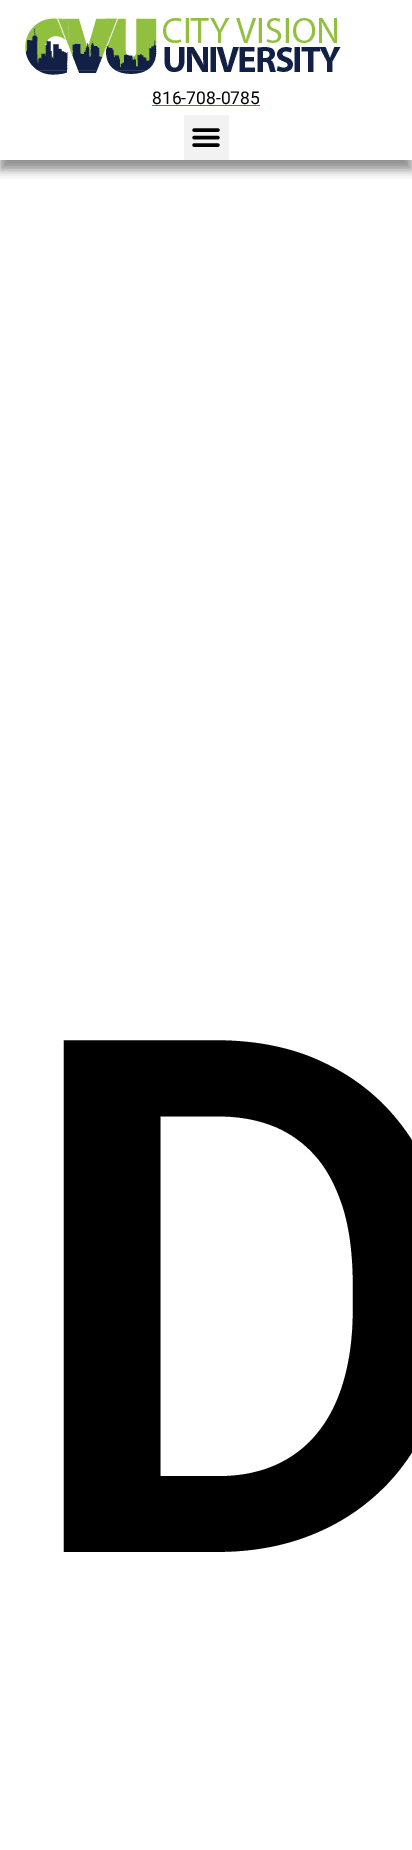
%!PS
<< /PageSize [412 1850] /PageUsesTransparency true >> setpagedevice
/rgb { 3 { 255 div 3 1 roll } repeat setrgbcolor } def
/font { [ exch dup neg 0 0 3 -1 roll 0 0 ] selectfont } def
/alpha { dup .setfillconstantalpha .setstrokeconstantalpha } def
/roundrect { 5 dict begin { /r /h /w /y /x } { exch def } forall
  x r add y moveto x w add y 2 copy h add r arct x w add y h add x 1 index r arct
  x y h add x y r arct x y 2 copy exch w add exch r arct closepath end } def
/shadow { 12 dict begin { /a /b /q /h /w /y /x } { exch def } forall gsave /was 0 def
  9 -2 -9 { dup b mul 4 div /e exch def 1 sub .425 mul 2.718 exch exp 1 add a .99 .min exch div /now exch def
    1 1 now sub 1 was sub div sub alpha /was now def
    w h .min e 2 mul add 0 gt { x e sub y e sub w e 2 mul add h e 2 mul add
      q e add b .6 mul add w h .min 2 div e add .min 0 .max roundrect fill } if } for grestore end } def
/picture { 5 dict begin { /h /w /y /x /name } { exch def } forall
  gsave x y translate w h scale
  w h 8 [w 0 0 h 0 0] name (r) file false 3 colorimage grestore end } def
0 .pushpdf14devicefilter
0 1850 translate 1 -1 scale
4 setmiterlimit
255 255 255 rgb
0 0 412 1850 rectfill
gsave
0 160 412 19 rectclip
28 28 28 rgb
0 10 412 160 0 5 0.5 shadow
grestore
(img/1.rgb) 25 18 316 58 picture
191 64 80 rgb
152 105 108 1 rectfill
242 242 242 rgb
184 115 45 45 rectfill
(img/2.rgb) 192 128 28 19 picture
/Roboto-Regular 17.5 font
0 0 0 rgb
152 104 moveto (816-708-0785) show
/Roboto-SemiBold 720 font
15 1552 moveto (D) show
.poppdf14devicefilter showpage
